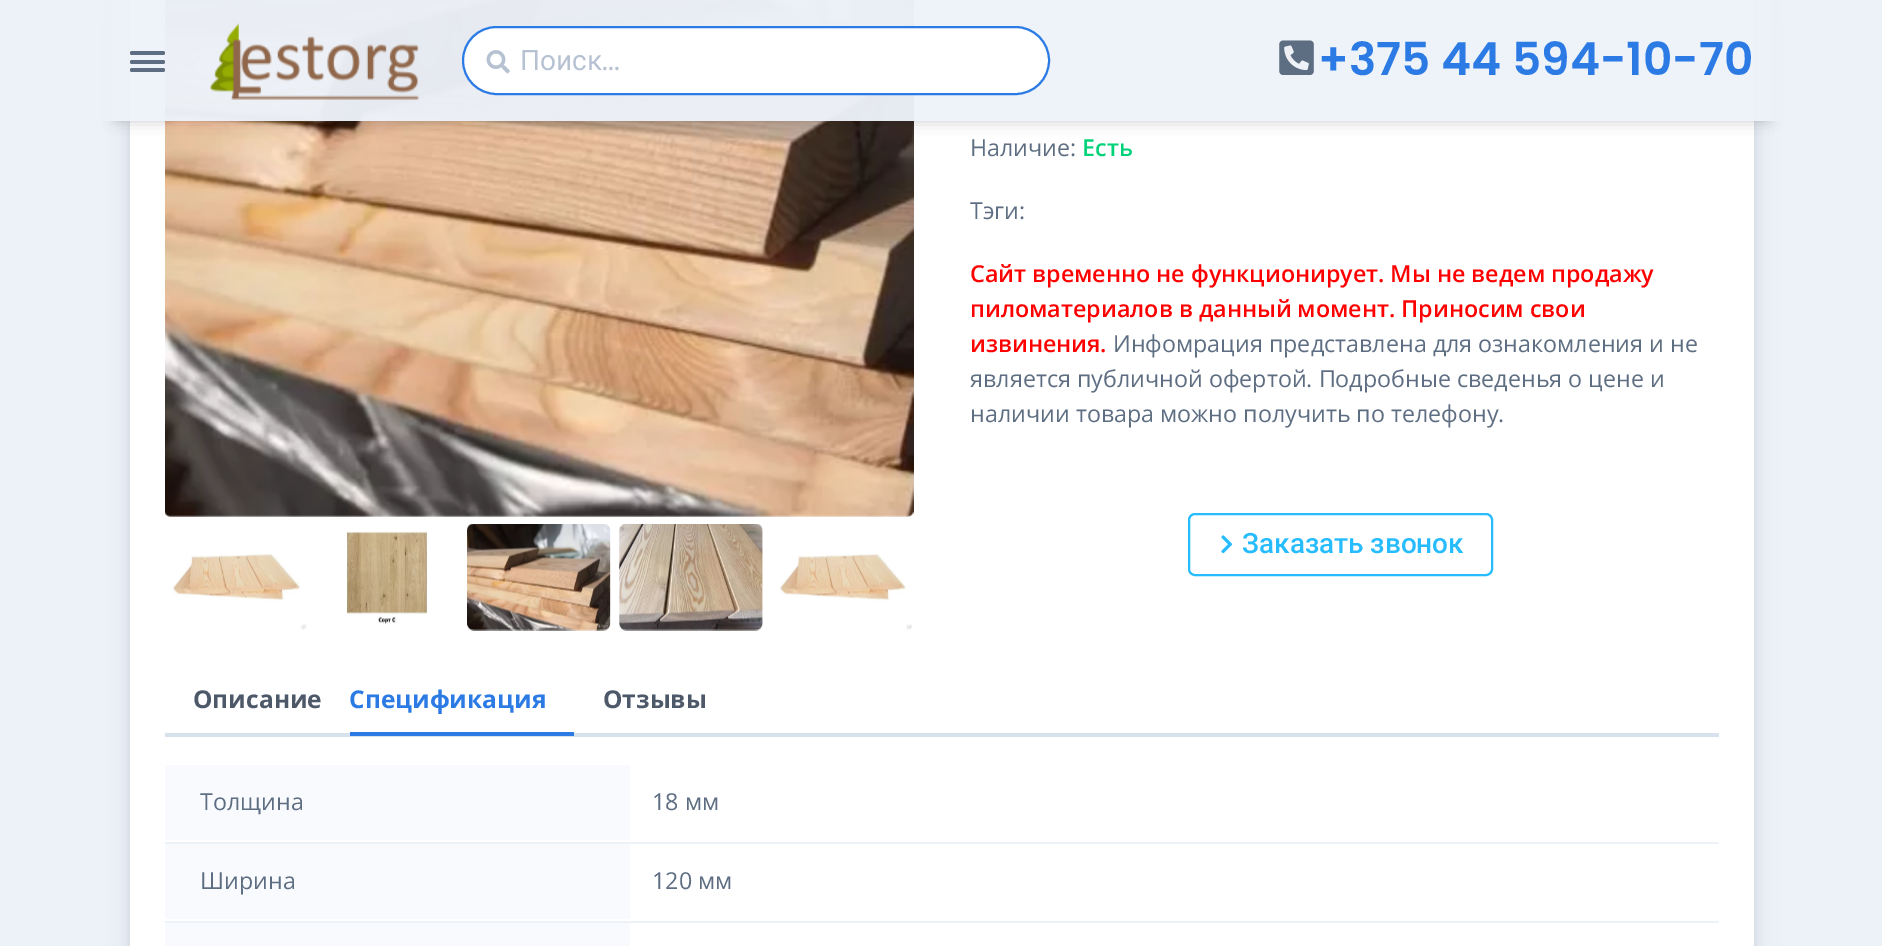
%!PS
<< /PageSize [1882 946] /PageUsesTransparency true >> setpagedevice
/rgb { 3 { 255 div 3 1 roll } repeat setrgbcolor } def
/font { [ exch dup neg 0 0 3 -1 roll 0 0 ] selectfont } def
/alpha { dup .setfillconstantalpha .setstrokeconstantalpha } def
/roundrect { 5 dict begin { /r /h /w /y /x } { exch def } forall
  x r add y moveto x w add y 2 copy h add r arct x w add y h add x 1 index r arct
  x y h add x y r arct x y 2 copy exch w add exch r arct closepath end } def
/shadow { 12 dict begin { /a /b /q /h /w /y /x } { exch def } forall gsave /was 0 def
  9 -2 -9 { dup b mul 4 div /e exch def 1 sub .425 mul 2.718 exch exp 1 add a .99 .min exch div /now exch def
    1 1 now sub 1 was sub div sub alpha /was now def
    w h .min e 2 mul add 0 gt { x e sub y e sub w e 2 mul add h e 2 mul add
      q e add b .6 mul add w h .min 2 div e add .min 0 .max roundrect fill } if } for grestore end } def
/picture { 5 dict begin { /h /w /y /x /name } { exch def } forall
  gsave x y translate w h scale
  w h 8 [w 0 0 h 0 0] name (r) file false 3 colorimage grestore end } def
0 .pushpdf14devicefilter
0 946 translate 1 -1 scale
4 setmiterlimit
237 242 249 rgb
0 0 1882 946 rectfill
0 0 0 rgb
130 -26 1624 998 11 5 0.07 shadow
65 69 88 rgb
130 -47 1624 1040 11 12 0.1 shadow
255 255 255 rgb
130 0 1624 946 rectfill
(img/4.rgb) 165 0 749 517 picture
gsave
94 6 moveto 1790 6 lineto 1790 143 lineto 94 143 lineto closepath 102 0 moveto 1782 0 lineto 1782 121 lineto 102 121 lineto closepath eoclip newpath
0 0 0 rgb
116 28 1652 93 0 7 0.2 shadow
grestore
0.96 alpha
237 242 249 rgb
111 0 1662 121 rectfill
1 alpha
94 110 130 rgb
130 51 35 4 2 roundrect fill
130 60 35 4 2 roundrect fill
130 68 35 4 2 roundrect fill
(img/1.rgb) 210 23 209 77 picture
255 255 255 rgb
463 27 586 67 33.5 roundrect gsave fill grestore
44 123 229 rgb
2 setlinewidth
stroke
(img/2.rgb) 486 50 24 24 picture
(img/3.rgb) 1279 40 35 35 picture
(img/5.rgb) 172 554 135 76 picture
(img/6.rgb) 346 531 82 93 picture
(img/7.rgb) 467 524 144 107 picture
(img/8.rgb) 619 524 144 107 picture
(img/9.rgb) 779 554 133 76 picture
39 188 253 rgb
1189 514 303 61 6 roundrect stroke
(img/10.rgb) 1221 535 12 19 picture
[
  [165 733 1554 4 216 226 239]
  [350 732 224 4 44 123 229]
  [165 765 465 75 249 250 253]
  [165 842 1554 2 237 242 249]
  [165 844 465 75 249 250 253]
  [165 921 1554 2 237 242 249]
  [165 923 465 23 249 250 253]
] { aload pop rgb rectfill } forall
/Roboto-Regular 28 font
182 193 210 rgb
520 70 moveto (Поиск) show
/Poppins-Regular 28 font
602 70 moveto (...) show
/Poppins-SemiBold 45.5 font
44 123 229 rgb
1318 75 moveto (+375 44 594-10-70) show
/OpenSans-Regular 23.3 font
94 110 130 rgb
970 156 moveto (Наличие:) show
/OpenSans-SemiBold 23.3 font
0 210 122 rgb
1082 156 moveto (Есть) show
/OpenSans-Regular 23.3 font
94 110 130 rgb
970 219 moveto (Тэги:) show
/OpenSans-SemiBold 23.3 font
255 0 0 rgb
[
  [(Сайт временно не функционирует. Мы не ведем продажу) 970 282]
  [(пиломатериалов в данный момент. Приносим свои) 970 317]
  [(извинения.) 970 352]
] { aload pop moveto show } forall
/OpenSans-Regular 23.3 font
94 110 130 rgb
[
  [(Инфомрация представлена для ознакомления и не) 1113 352]
  [(является публичной офертой. Подробные сведенья о цене и) 970 387]
  [(наличии товара можно получить по телефону.) 970 422]
] { aload pop moveto show } forall
/Roboto-Medium 28 font
39 188 253 rgb
1242 553 moveto (Заказать звонок) show
/OpenSans-Bold 24.5 font
77 89 105 rgb
193 708 moveto (Описание) show
44 123 229 rgb
349 708 moveto (Спецификация) show
77 89 105 rgb
603 708 moveto (Отзывы) show
/OpenSans-Regular 23.3 font
94 110 130 rgb
[
  [(Толщина) 200 810]
  [(18 мм) 652 810]
  [(Ширина) 200 889]
  [(120 мм) 652 889]
] { aload pop moveto show } forall
.poppdf14devicefilter showpage
